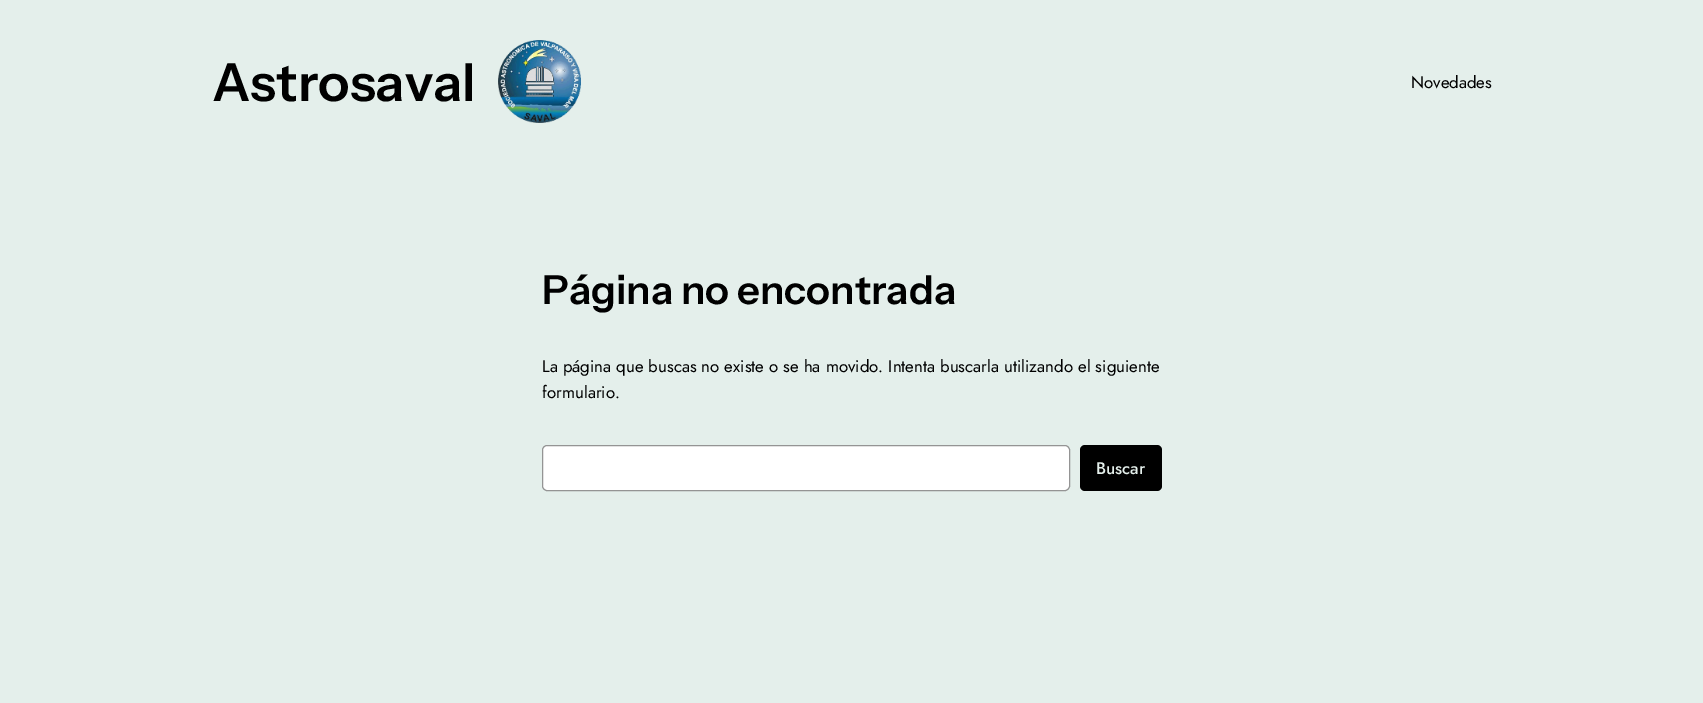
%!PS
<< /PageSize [1703 703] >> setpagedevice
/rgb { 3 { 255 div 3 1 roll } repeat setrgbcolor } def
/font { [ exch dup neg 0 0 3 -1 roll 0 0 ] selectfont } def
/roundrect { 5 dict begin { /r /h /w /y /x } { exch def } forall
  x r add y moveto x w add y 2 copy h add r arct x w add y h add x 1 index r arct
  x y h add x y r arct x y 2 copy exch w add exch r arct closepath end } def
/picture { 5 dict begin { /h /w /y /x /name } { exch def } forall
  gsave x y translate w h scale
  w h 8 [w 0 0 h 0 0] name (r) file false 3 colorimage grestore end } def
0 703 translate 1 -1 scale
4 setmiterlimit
228 239 235 rgb
0 0 1703 703 rectfill
(img/1.rgb) 498 40 83 83 picture
255 255 255 rgb
542.5 445.5 527 45 4.5 roundrect gsave fill grestore
148 148 148 rgb
stroke
0 0 0 rgb
1080 445 82 46 5 roundrect fill
/InstrumentSans-SemiBold 52.5 font
212 101 moveto (Astrosaval) show
/Jost-Regular 16.8 font
1411 88 moveto (Novedades) show
/InstrumentSans-SemiBold 40 font
542 304 moveto (Página no encontrada) show
/Jost-Regular 16.8 font
542 372 moveto (La página que buscas no existe o se ha movido. Intenta buscarla utilizando el siguiente) show
542 398 moveto (formulario.) show
/Jost-Medium 16.8 font
228 239 235 rgb
1096 474 moveto (Buscar) show
showpage
